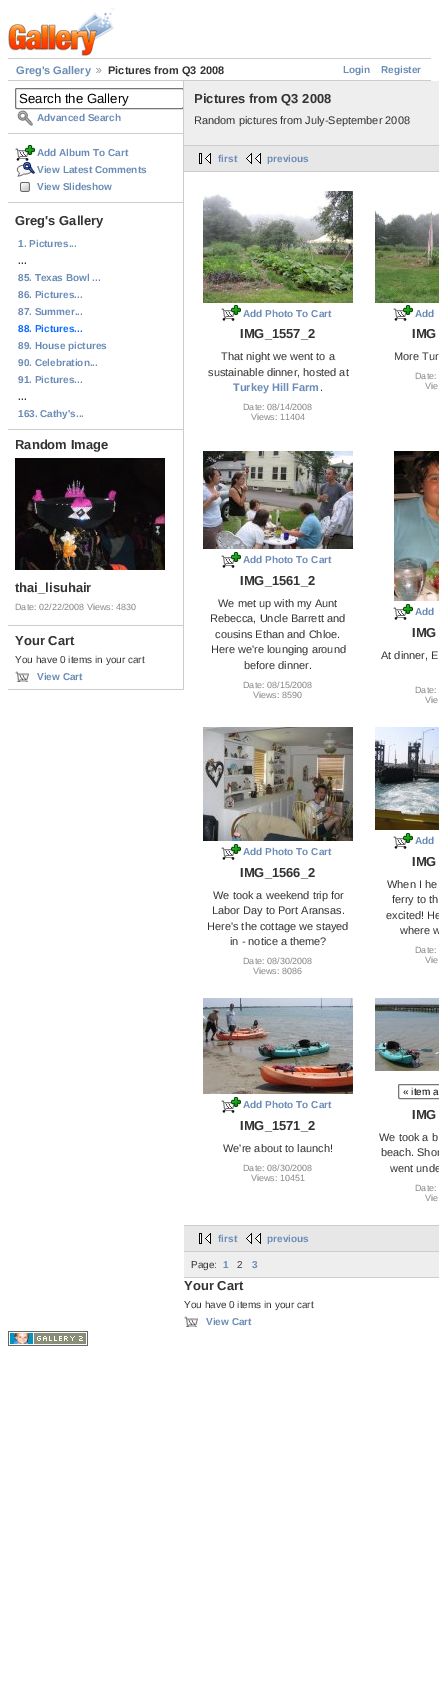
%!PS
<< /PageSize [439 1697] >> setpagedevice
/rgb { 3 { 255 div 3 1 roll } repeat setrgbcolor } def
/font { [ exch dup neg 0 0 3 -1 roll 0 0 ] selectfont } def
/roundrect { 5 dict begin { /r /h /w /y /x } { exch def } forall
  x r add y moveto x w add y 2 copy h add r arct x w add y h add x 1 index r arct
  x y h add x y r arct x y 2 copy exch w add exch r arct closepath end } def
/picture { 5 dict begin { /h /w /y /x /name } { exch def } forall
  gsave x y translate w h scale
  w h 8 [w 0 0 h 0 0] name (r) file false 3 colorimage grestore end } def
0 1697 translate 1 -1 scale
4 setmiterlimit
255 255 255 rgb
0 0 439 1697 rectfill
(img/1.rgb) 8 8 107 48 picture
204 204 204 rgb
8 58 423 1 rectfill
8 80 423 1 rectfill
(img/2.rgb) 96 68 6 5 picture
183 81 1 609 rectfill
8 133 175 1 rectfill
gsave
8 81 175 609 rectclip
118 118 118 rgb
15.5 88.5 168 20 1.5 roundrect stroke
grestore
(img/3.rgb) 17 110 16 16 picture
8 202 175 1 rectfill
(img/4.rgb) 15 145 20 16 picture
(img/5.rgb) 16 162 19 15 picture
(img/6.rgb) 20 182 10 10 picture
8 429 175 1 rectfill
8 625 175 1 rectfill
(img/7.rgb) 15 458 150 112 picture
8 689 175 1 rectfill
(img/8.rgb) 15 671 14 11 picture
[
  [184 81 255 64 238 238 238]
  [184 145 255 1 204 204 204]
  [184 146 255 25 231 231 231]
  [184 171 255 1 204 204 204]
] { aload pop rgb rectfill } forall
(img/9.rgb) 199 153 12 11 picture
(img/10.rgb) 246 153 15 11 picture
184 1225 255 1 rectfill
(img/11.rgb) 203 191 150 112 picture
(img/4.rgb) 221 305 20 16 picture
(img/12.rgb) 375 207 64 96 picture
(img/4.rgb) 393 305 20 16 picture
(img/13.rgb) 203 451 150 98 picture
(img/4.rgb) 221 552 20 16 picture
(img/14.rgb) 394 451 45 150 picture
(img/4.rgb) 393 604 20 16 picture
(img/15.rgb) 203 727 150 114 picture
(img/4.rgb) 221 844 20 16 picture
(img/16.rgb) 375 727 64 103 picture
(img/4.rgb) 393 833 20 16 picture
(img/17.rgb) 203 998 150 96 picture
(img/4.rgb) 221 1097 20 16 picture
(img/18.rgb) 375 998 64 73 picture
118 118 118 rgb
398.5 1084.5 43 14 1.5 roundrect stroke
231 231 231 rgb
184 1226 255 25 rectfill
204 204 204 rgb
184 1251 255 1 rectfill
(img/9.rgb) 199 1233 12 11 picture
(img/10.rgb) 246 1233 15 11 picture
238 238 238 rgb
184 1252 255 25 rectfill
204 204 204 rgb
184 1277 255 1 rectfill
(img/8.rgb) 184 1316 14 11 picture
(img/19.rgb) 8 1331 80 15 picture
/LiberationSans-Bold 11 font
107 140 183 rgb
16 74 moveto (Greg's Gallery) show
51 51 51 rgb
108 74 moveto (Pictures from Q3 2008) show
/LiberationSans-Bold 10 font
107 140 183 rgb
343 73 moveto (Login) show
381 73 moveto (Register) show
/LiberationSans-Regular 13.25 font
0 0 0 rgb
19 103 moveto (Search the Gallery) show
/LiberationSans-Bold 10 font
107 140 183 rgb
[
  [(Advanced Search) 37 121]
  [(Add Album To Cart) 37 156]
  [(View Latest Comments) 37 173]
  [(View Slideshow) 37 190]
] { aload pop moveto show } forall
/LiberationSans-Bold 13 font
51 51 51 rgb
15 225 moveto (Greg's Gallery) show
/LiberationSans-Bold 10 font
107 140 183 rgb
18 247 moveto (1. Pictures...) show
51 51 51 rgb
18 264 moveto (...) show
107 140 183 rgb
[
  [(85. Texas Bowl ...) 18 281]
  [(86. Pictures...) 18 298]
  [(87. Summer...) 18 315]
] { aload pop moveto show } forall
11 108 255 rgb
18 332 moveto (88. Pictures...) show
107 140 183 rgb
[
  [(89. House pictures) 18 349]
  [(90. Celebration...) 18 366]
  [(91. Pictures...) 18 383]
] { aload pop moveto show } forall
51 51 51 rgb
18 400 moveto (...) show
107 140 183 rgb
18 417 moveto (163. Cathy's...) show
/LiberationSans-Bold 13 font
51 51 51 rgb
15 449 moveto (Random Image) show
15 592 moveto (thai_lisuhair) show
/LiberationSans-Regular 9 font
136 136 136 rgb
15 610 moveto (Date: 02/22/2008 Views: 4830) show
/LiberationSans-Bold 13 font
51 51 51 rgb
15 645 moveto (Your Cart) show
/LiberationSans-Regular 10 font
15 663 moveto (You have 0 items in your cart) show
/LiberationSans-Bold 10 font
107 140 183 rgb
37 680 moveto (View Cart) show
/LiberationSans-Bold 13 font
51 51 51 rgb
194 103 moveto (Pictures from Q3 2008) show
/LiberationSans-Regular 11 font
194 124 moveto (Random pictures from July-September 2008) show
/LiberationSans-Bold 10 font
107 140 183 rgb
[
  [(first) 218 162]
  [(previous) 267 162]
  [(Add Photo To Cart) 243 317]
] { aload pop moveto show } forall
/LiberationSans-Bold 13 font
51 51 51 rgb
240 338 moveto (IMG_1557_2) show
/LiberationSans-Regular 11 font
221 360 moveto (That night we went to a) show
208 376 moveto (sustainable dinner, hosted at) show
/LiberationSans-Bold 11 font
107 140 183 rgb
233 391 moveto (Turkey Hill Farm) show
/LiberationSans-Regular 11 font
51 51 51 rgb
320 391 moveto (.) show
/LiberationSans-Regular 9 font
136 136 136 rgb
243 410 moveto (Date: 08/14/2008) show
251 420 moveto (Views: 11404) show
/LiberationSans-Bold 10 font
107 140 183 rgb
415 317 moveto (Add) show
/LiberationSans-Bold 13 font
51 51 51 rgb
412 338 moveto (IMG) show
/LiberationSans-Regular 11 font
394 360 moveto (More Tur) show
/LiberationSans-Regular 9 font
136 136 136 rgb
415 379 moveto (Date:) show
425 389 moveto (Vie) show
/LiberationSans-Bold 10 font
107 140 183 rgb
243 563 moveto (Add Photo To Cart) show
/LiberationSans-Bold 13 font
51 51 51 rgb
240 585 moveto (IMG_1561_2) show
/LiberationSans-Regular 11 font
[
  [(We met up with my Aunt) 218 607]
  [(Rebecca, Uncle Barrett and) 210 622]
  [(cousins Ethan and Chloe.) 215 638]
  [(Here we're lounging around) 211 653]
  [(before dinner.) 244 669]
] { aload pop moveto show } forall
/LiberationSans-Regular 9 font
136 136 136 rgb
243 688 moveto (Date: 08/15/2008) show
253 698 moveto (Views: 8590) show
/LiberationSans-Bold 10 font
107 140 183 rgb
415 615 moveto (Add) show
/LiberationSans-Bold 13 font
51 51 51 rgb
412 637 moveto (IMG) show
/LiberationSans-Regular 11 font
381 659 moveto (At dinner, E) show
/LiberationSans-Regular 9 font
136 136 136 rgb
415 693 moveto (Date:) show
425 703 moveto (Vie) show
/LiberationSans-Bold 10 font
107 140 183 rgb
243 855 moveto (Add Photo To Cart) show
/LiberationSans-Bold 13 font
51 51 51 rgb
240 877 moveto (IMG_1566_2) show
/LiberationSans-Regular 11 font
[
  [(We took a weekend trip for) 213 899]
  [(Labor Day to Port Aransas.) 212 914]
  [(Here's the cottage we stayed) 207 930]
  [(in - notice a theme?) 230 945]
] { aload pop moveto show } forall
/LiberationSans-Regular 9 font
136 136 136 rgb
243 964 moveto (Date: 08/30/2008) show
253 974 moveto (Views: 8086) show
/LiberationSans-Bold 10 font
107 140 183 rgb
415 844 moveto (Add) show
/LiberationSans-Bold 13 font
51 51 51 rgb
412 866 moveto (IMG) show
/LiberationSans-Regular 11 font
[
  [(When I he) 387 888]
  [(ferry to th) 392 903]
  [(excited! He) 386 919]
  [(where w) 400 934]
] { aload pop moveto show } forall
/LiberationSans-Regular 9 font
136 136 136 rgb
415 953 moveto (Date:) show
425 963 moveto (Vie) show
/LiberationSans-Bold 10 font
107 140 183 rgb
243 1108 moveto (Add Photo To Cart) show
/LiberationSans-Bold 13 font
51 51 51 rgb
240 1130 moveto (IMG_1571_2) show
/LiberationSans-Regular 11 font
223 1152 moveto (We're about to launch!) show
/LiberationSans-Regular 9 font
136 136 136 rgb
243 1171 moveto (Date: 08/30/2008) show
251 1181 moveto (Views: 10451) show
/LiberationSans-Regular 10 font
0 0 0 rgb
403 1095 moveto (« item a) show
/LiberationSans-Bold 13 font
51 51 51 rgb
412 1119 moveto (IMG) show
/LiberationSans-Regular 11 font
[
  [(We took a b) 379 1141]
  [(beach. Shor) 381 1156]
  [(went unde) 390 1172]
] { aload pop moveto show } forall
/LiberationSans-Regular 9 font
136 136 136 rgb
415 1191 moveto (Date:) show
425 1201 moveto (Vie) show
/LiberationSans-Bold 10 font
107 140 183 rgb
218 1242 moveto (first) show
267 1242 moveto (previous) show
/LiberationSans-Regular 10 font
51 51 51 rgb
191 1268 moveto (Page:) show
/LiberationSans-Bold 10 font
107 140 183 rgb
223 1268 moveto (1) show
/LiberationSans-Regular 10 font
51 51 51 rgb
237 1268 moveto (2) show
/LiberationSans-Bold 10 font
107 140 183 rgb
252 1268 moveto (3) show
/LiberationSans-Bold 13 font
51 51 51 rgb
184 1290 moveto (Your Cart) show
/LiberationSans-Regular 10 font
184 1308 moveto (You have 0 items in your cart) show
/LiberationSans-Bold 10 font
107 140 183 rgb
206 1325 moveto (View Cart) show
showpage
